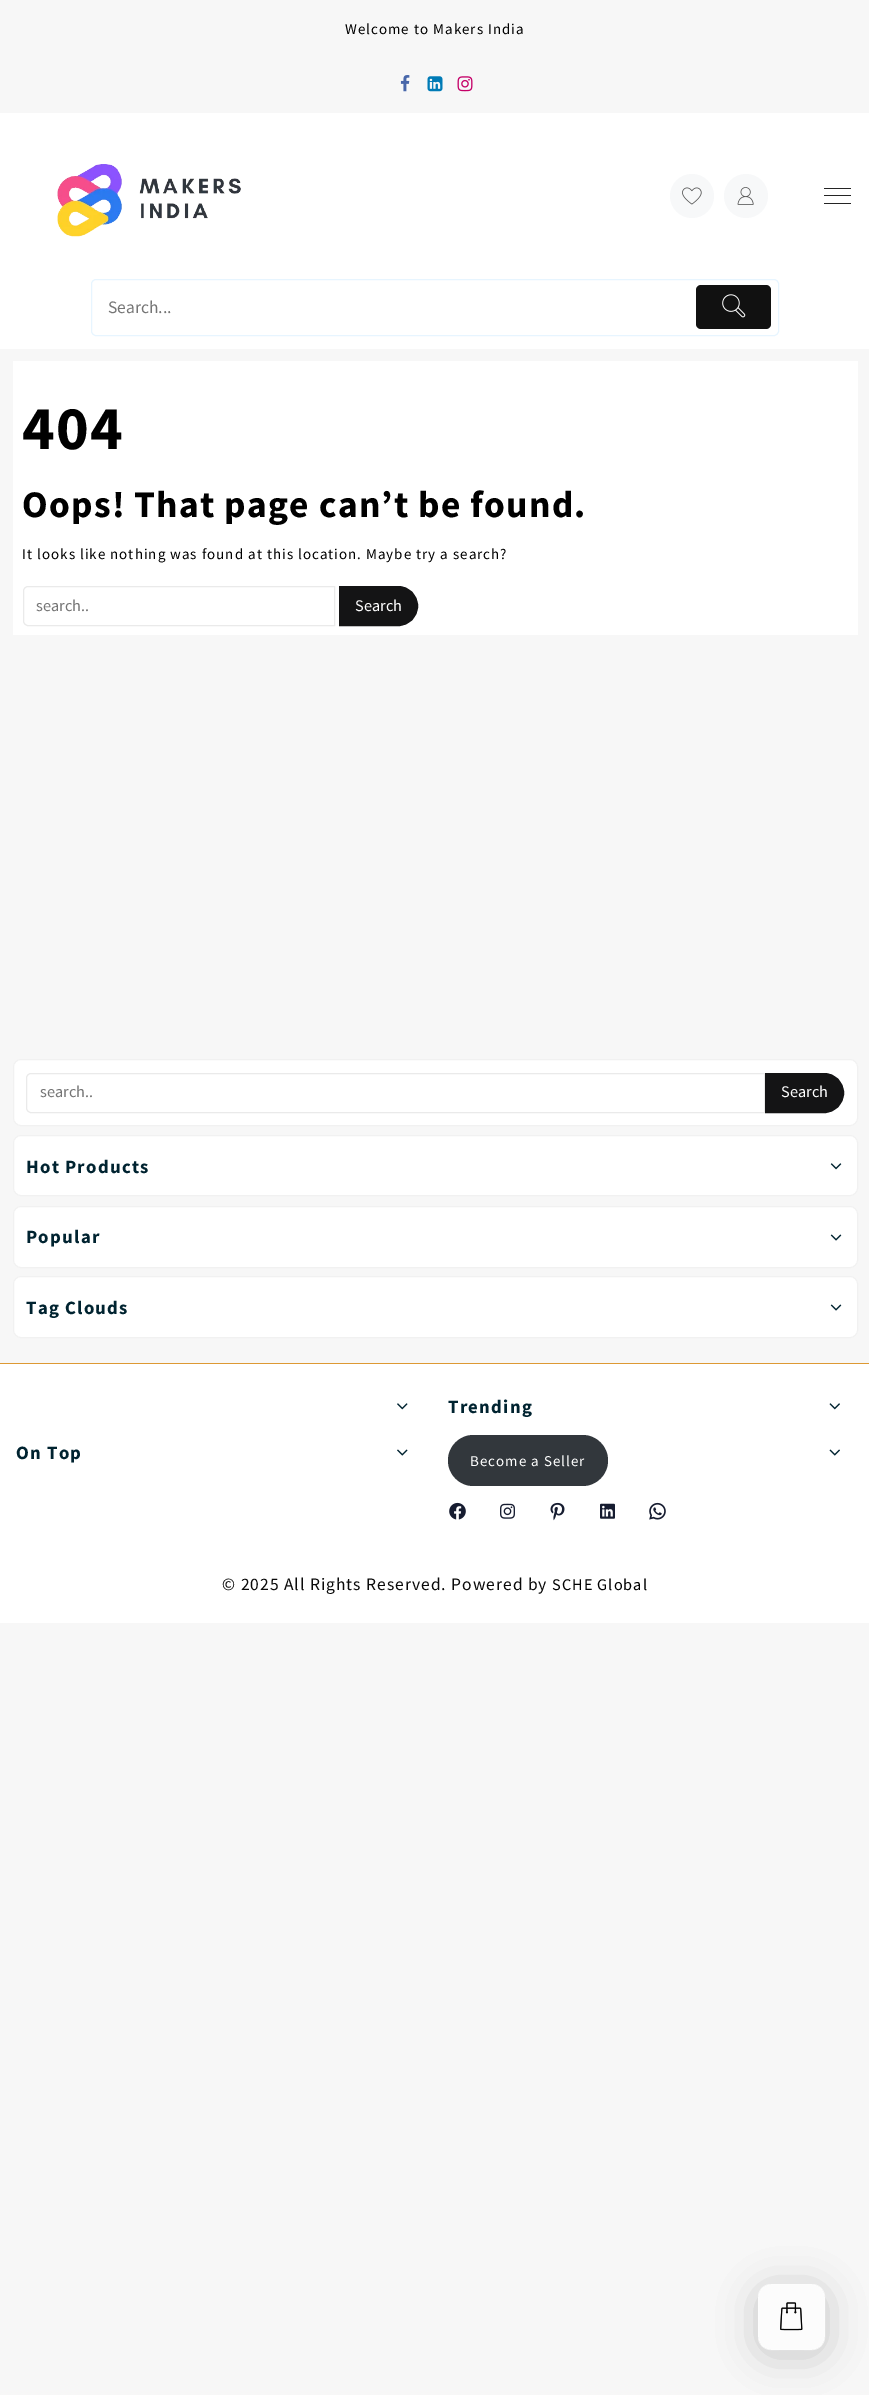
%!PS
<< /PageSize [869 2395] /PageUsesTransparency true >> setpagedevice
/rgb { 3 { 255 div 3 1 roll } repeat setrgbcolor } def
/font { [ exch dup neg 0 0 3 -1 roll 0 0 ] selectfont } def
/alpha { dup .setfillconstantalpha .setstrokeconstantalpha } def
/circle { newpath 0 360 arc closepath } def
/roundrect { 5 dict begin { /r /h /w /y /x } { exch def } forall
  x r add y moveto x w add y 2 copy h add r arct x w add y h add x 1 index r arct
  x y h add x y r arct x y 2 copy exch w add exch r arct closepath end } def
/shadow { 12 dict begin { /a /b /q /h /w /y /x } { exch def } forall gsave /was 0 def
  9 -2 -9 { dup b mul 4 div /e exch def 1 sub .425 mul 2.718 exch exp 1 add a .99 .min exch div /now exch def
    1 1 now sub 1 was sub div sub alpha /was now def
    w h .min e 2 mul add 0 gt { x e sub y e sub w e 2 mul add h e 2 mul add
      q e add b .6 mul add w h .min 2 div e add .min 0 .max roundrect fill } if } for grestore end } def
/picture { 5 dict begin { /h /w /y /x /name } { exch def } forall
  gsave x y translate w h scale
  w h 8 [w 0 0 h 0 0] name (r) file false 3 colorimage grestore end } def
0 .pushpdf14devicefilter
0 2395 translate 1 -1 scale
4 setmiterlimit
247 247 247 rgb
0 0 869 2395 rectfill
255 255 255 rgb
0 113 869 236 rectfill
(img/1.rgb) 400 75 10 17 picture
(img/2.rgb) 427 76 16 16 picture
(img/3.rgb) 457 76 16 16 picture
(img/4.rgb) 57 164 184 73 picture
247 248 249 rgb
692 196 22 circle fill
(img/5.rgb) 682 187 20 18 picture
746 196 22 circle fill
(img/6.rgb) 737 187 17 18 picture
36 36 36 rgb
824 188 27 1 0.5 roundrect fill
824 195 27 1 0.5 roundrect fill
824 203 27 1 0.5 roundrect fill
231 245 255 rgb
91.5 279.5 687 56 4.5 roundrect stroke
17 17 17 rgb
696 285 75 44 5 roundrect fill
(img/7.rgb) 722 294 24 24 picture
255 255 255 rgb
13 361 845 274 rectfill
234 234 234 rgb
28 586.5 moveto 334.5 586.5 lineto 334.5 625.5 lineto 28 625.5 lineto 25.5 625.5 23.5 623.5 23.5 621 curveto 23.5 591 lineto 23.5 588.5 25.5 586.5 28 586.5 curveto closepath stroke
20 20 21 rgb
339.5 586.5 moveto 398 586.5 lineto 409 586.5 417.5 595 417.5 606 curveto 417.5 617 409 625.5 398 625.5 curveto 339.5 625.5 lineto closepath gsave fill grestore
stroke
255 255 255 rgb
13.5 1059.5 844 66 7.5 roundrect gsave fill grestore
241 241 241 rgb
stroke
234 234 234 rgb
31 1073.5 moveto 764.5 1073.5 lineto 764.5 1112.5 lineto 31 1112.5 lineto 28.5 1112.5 26.5 1110.5 26.5 1108 curveto 26.5 1078 lineto 26.5 1075.5 28.5 1073.5 31 1073.5 curveto closepath stroke
20 20 21 rgb
765.5 1073.5 moveto 824 1073.5 lineto 835 1073.5 843.5 1082 843.5 1093 curveto 843.5 1104 835 1112.5 824 1112.5 curveto 765.5 1112.5 lineto closepath gsave fill grestore
stroke
255 255 255 rgb
13.5 1135.5 844 60 7.5 roundrect gsave fill grestore
241 241 241 rgb
stroke
(img/8.rgb) 830 1163 12 7 picture
255 255 255 rgb
13.5 1206.5 844 61 7.5 roundrect gsave fill grestore
241 241 241 rgb
stroke
(img/9.rgb) 830 1234 12 7 picture
255 255 255 rgb
13.5 1276.5 844 61 7.5 roundrect gsave fill grestore
241 241 241 rgb
stroke
(img/9.rgb) 830 1304 12 7 picture
221 153 51 rgb
0 1363 869 1 rectfill
255 255 255 rgb
0 1364 869 259 rectfill
(img/10.rgb) 397 1403 11 7 picture
(img/11.rgb) 829 1403 11 7 picture
(img/12.rgb) 397 1449 11 7 picture
(img/13.rgb) 829 1449 11 7 picture
50 55 60 rgb
448 1435 160 51 25.5 roundrect fill
(img/14.rgb) 449 1502 17 18 picture
(img/15.rgb) 500 1503 15 16 picture
(img/16.rgb) 550 1502 15 19 picture
(img/17.rgb) 600 1503 15 16 picture
(img/18.rgb) 649 1502 17 18 picture
0 0 0 rgb
758 2289 67 66 13 19 0.1 shadow
250 250 250 rgb
758.5 2284.5 66 65 12.5 roundrect gsave fill grestore
251 251 251 rgb
stroke
(img/19.rgb) 780 2302 23 29 picture
gsave
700 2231 moveto 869 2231 lineto 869 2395 lineto 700 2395 lineto closepath 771 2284 moveto 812 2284 lineto 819 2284 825 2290 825 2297 curveto 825 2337 lineto 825 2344 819 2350 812 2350 curveto 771 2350 lineto 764 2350 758 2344 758 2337 curveto 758 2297 lineto 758 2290 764 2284 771 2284 curveto closepath eoclip newpath
0 0 0 rgb
758 2289 67 66 13 19 0.1 shadow
grestore
0.44 alpha
255 255 255 rgb
758 2284 67 66 13 roundrect fill
1 alpha
(img/20.rgb) 780 2302 23 29 picture
/SourceSansPro-Regular 15 font
0 0 0 rgb
345 34 moveto 1 0 (Welcome to Makers India) ashow
/SourceSansPro-Regular 17.5 font
117 117 117 rgb
108 313 moveto (Search...) show
/SourceSansPro-Bold 62 font
0 0 0 rgb
22 449 moveto 1.25 0 (404) ashow
/SourceSansPro-Bold 37.5 font
22 517 moveto 1.25 0 (Oops! That page can’t be found.) ashow
/SourceSansPro-Regular 15 font
22 559 moveto 1 0 (It looks like nothing was found at this location. Maybe try a search?) ashow
/SourceSansPro-Regular 16.25 font
117 117 117 rgb
36 611 moveto (search..) show
255 255 255 rgb
355 611 moveto (Search) show
117 117 117 rgb
40 1097 moveto (search..) show
255 255 255 rgb
781 1097 moveto (Search) show
/SourceSansPro-Bold 18.75 font
0 35 48 rgb
26 1173 moveto 1.25 0 (Hot Products) ashow
26 1243 moveto 1.25 0 (Popular) ashow
26 1314 moveto 1.25 0 (Tag Clouds) ashow
448 1413 moveto 1.25 0 (Trending) ashow
16 1459 moveto 1.25 0 (On Top) ashow
/SourceSansPro-Regular 15 font
255 255 255 rgb
470 1466 moveto 1 0 (Become a Seller) ashow
/SourceSansPro-Regular 17.5 font
10 10 10 rgb
222 1590 moveto 1 0 (© 2025 All Rights Reserved. Powered by) ashow
/SourceSansPro-Regular 16.25 font
0 0 0 rgb
552 1590 moveto 1 0 (SCHE Global) ashow
.poppdf14devicefilter showpage
